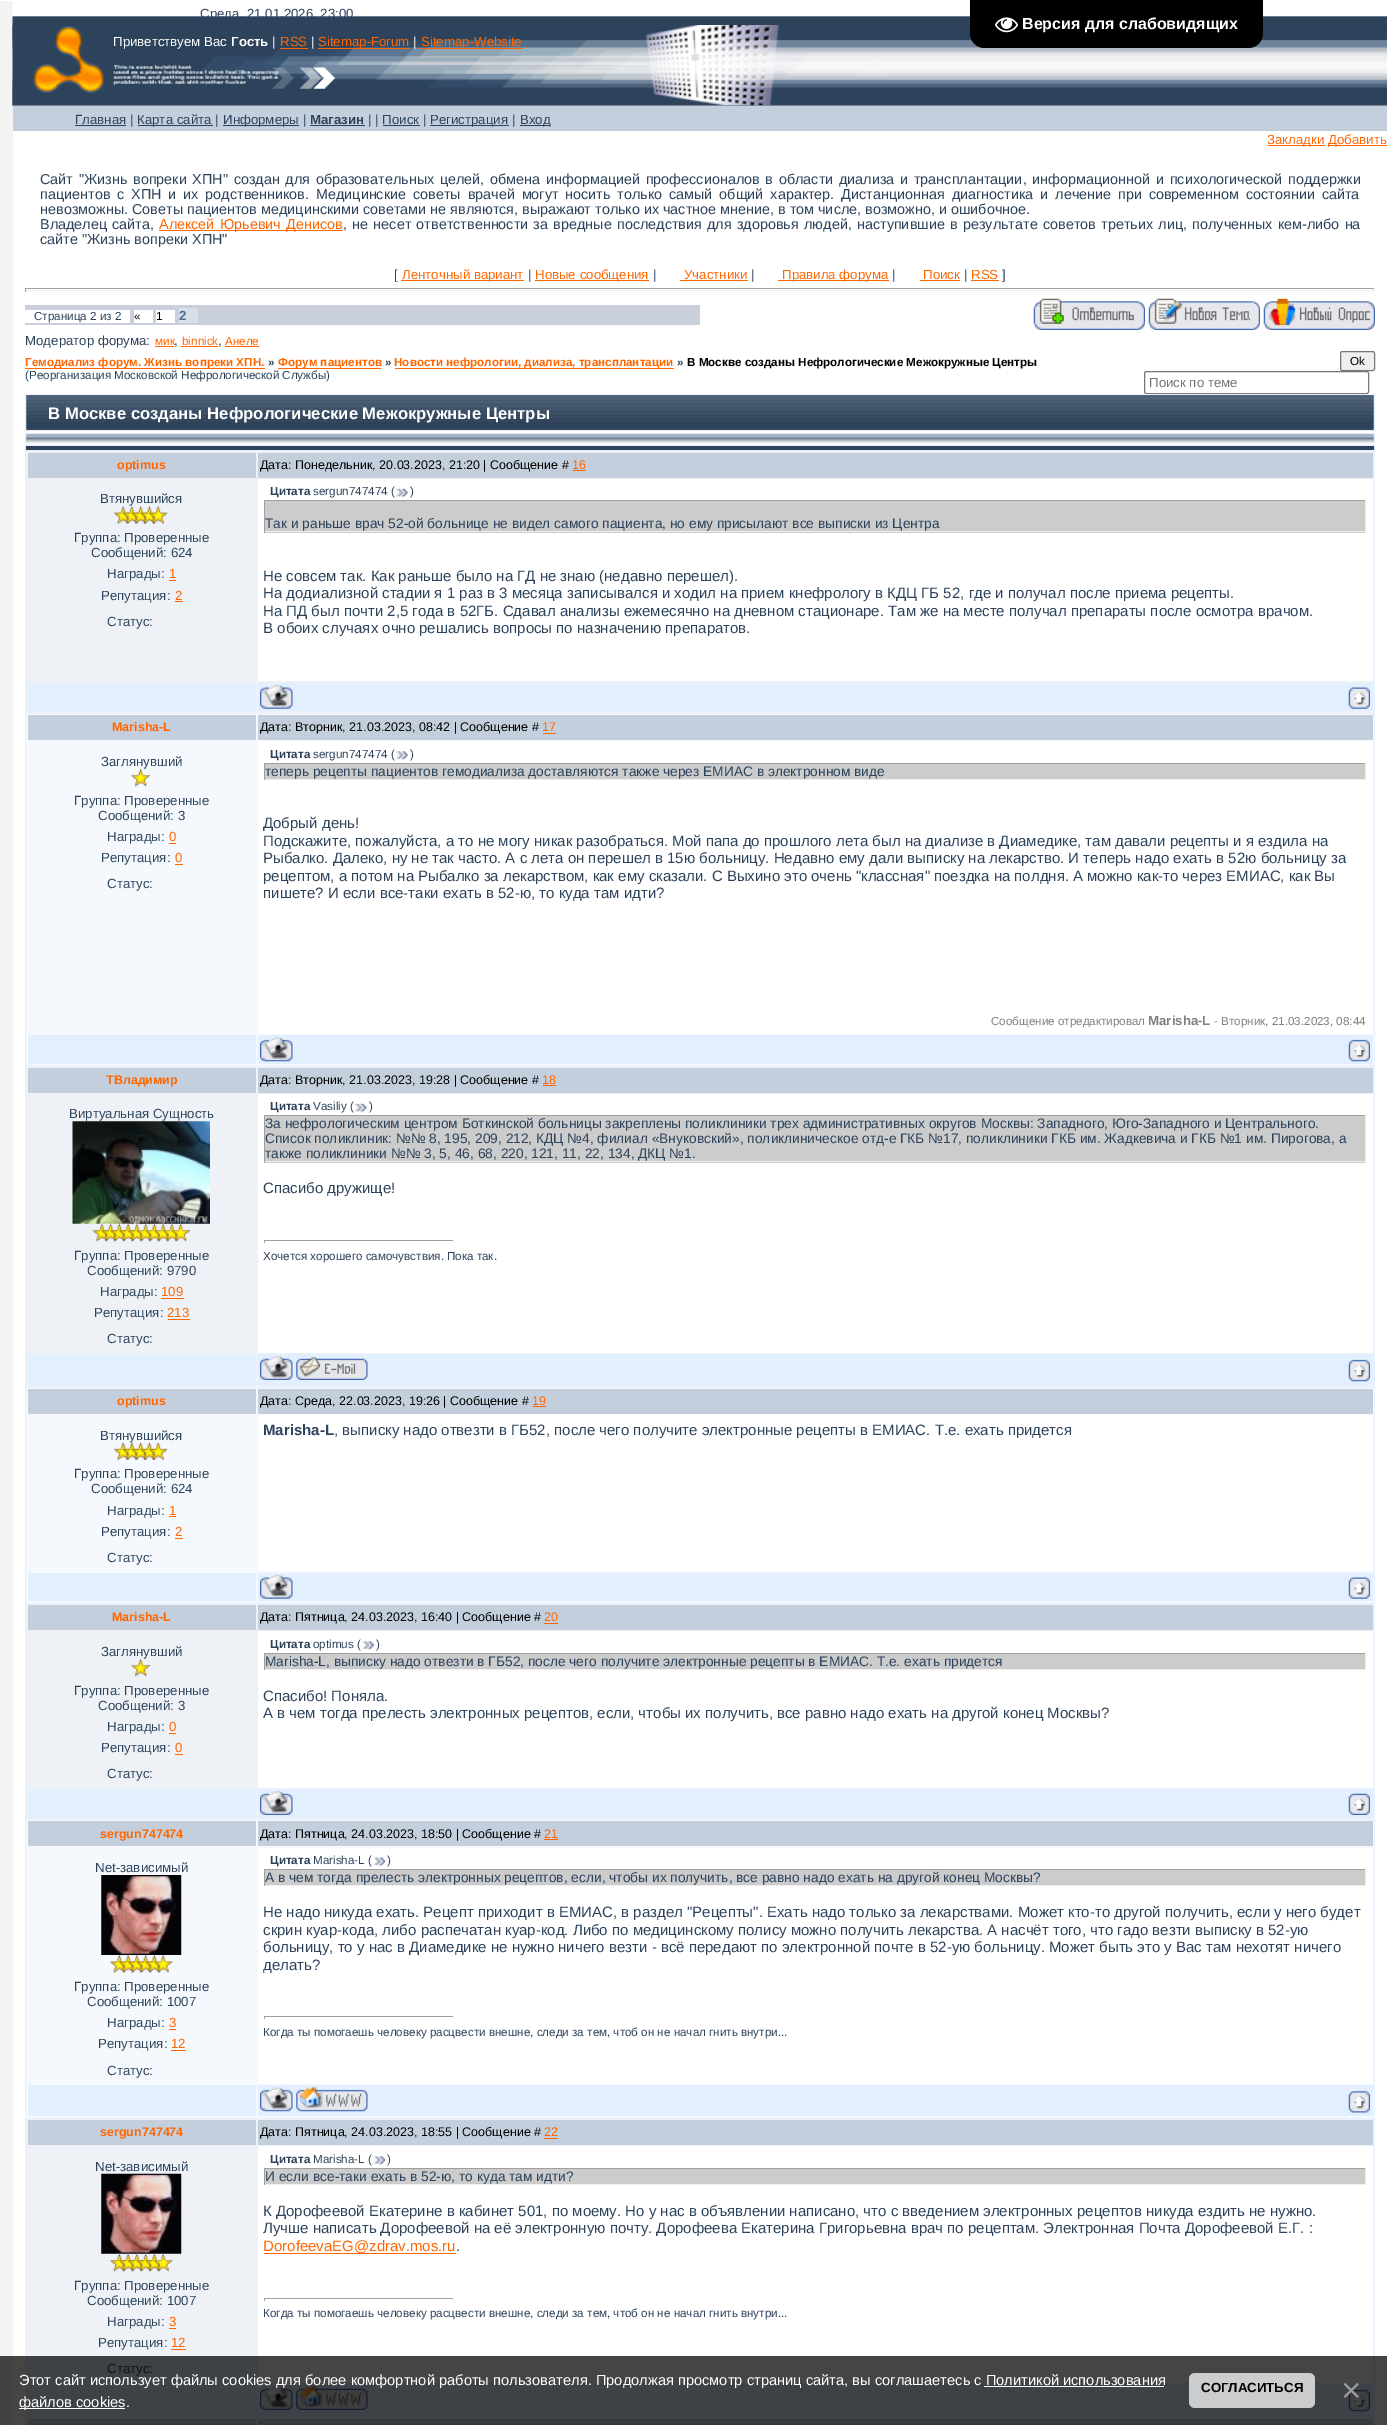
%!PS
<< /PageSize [1387 2425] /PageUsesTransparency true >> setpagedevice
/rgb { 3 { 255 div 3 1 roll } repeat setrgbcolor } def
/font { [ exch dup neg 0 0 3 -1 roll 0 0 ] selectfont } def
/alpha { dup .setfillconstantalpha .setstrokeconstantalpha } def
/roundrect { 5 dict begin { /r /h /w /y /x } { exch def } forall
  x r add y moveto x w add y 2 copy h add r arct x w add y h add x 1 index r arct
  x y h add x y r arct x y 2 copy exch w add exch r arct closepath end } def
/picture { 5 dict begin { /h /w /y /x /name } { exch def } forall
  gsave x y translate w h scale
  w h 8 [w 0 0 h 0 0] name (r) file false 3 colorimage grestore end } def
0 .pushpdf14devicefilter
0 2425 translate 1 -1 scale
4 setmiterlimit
255 255 255 rgb
0 0 1387 2425 rectfill
[
  [13 2356 1374 69 69 69 69]
  [0 1 13 2355 243 243 243]
  [0 2356 13 69 66 66 66]
] { aload pop rgb rectfill } forall
(img/1.rgb) 12 1 1375 106 picture
(img/2.rgb) 12 25 873 82 picture
[
  [280 48 28 1 255 102 0]
  [318 48 92 1 255 102 0]
  [420 48 103 1 255 102 0]
  [13 106 1374 25 196 207 221]
  [75 125 51 1 45 67 91]
  [138 125 75 1 45 67 91]
  [223 125 76 1 45 67 91]
  [310 125 55 1 45 67 91]
  [430 125 79 1 45 67 91]
  [520 125 30 1 45 67 91]
  [383 125 37 1 45 67 91]
  [1268 145 57 1 255 102 0]
  [1329 145 58 1 255 102 0]
  [159 230 184 1 255 102 0]
  [401 280 123 1 255 102 0]
  [535 280 114 1 255 102 0]
  [680 280 68 1 255 102 0]
  [778 280 111 1 255 102 0]
  [920 280 40 1 255 102 0]
  [971 280 28 1 255 102 0]
  [25 288 1350 1 159 159 159]
  [1374 288 1 4 238 238 238]
  [25 290 1350 1 238 238 238]
  [25 288 1 4 159 159 159]
  [25 305 675 20 201 208 219]
  [25 310 105 13 255 255 255]
  [134 310 19 13 255 255 255]
  [156 310 19 13 255 255 255]
  [179 308 19 15 218 223 231]
] { aload pop rgb rectfill } forall
(img/3.rgb) 1033 298 112 32 picture
(img/4.rgb) 1148 298 112 32 picture
(img/5.rgb) 1263 298 112 32 picture
[
  [155 346 19 1 255 102 0]
  [181 346 37 1 255 102 0]
  [225 346 34 1 255 102 0]
  [25 368 240 1 255 102 0]
  [278 368 103 1 255 102 0]
  [395 368 279 1 255 102 0]
] { aload pop rgb rectfill } forall
239 239 239 rgb
1340.5 351.5 34 19 2 roundrect gsave fill grestore
118 118 118 rgb
stroke
1144.5 371.5 224 22 2 roundrect stroke
231 241 255 rgb
25 394 1350 1962 rectfill
62 65 69 rgb
25 2356 1350 69 rectfill
(img/6.rgb) 26 395 1348 50 picture
[
  [26 446 1348 4 45 67 91]
  [26 451 1348 262 238 242 247]
  [28 453 228 25 196 207 221]
  [258 453 1115 25 196 207 221]
  [573 470 13 1 255 102 0]
] { aload pop rgb rectfill } forall
(img/7.rgb) 113 506 55 18 picture
[
  [169 580 7 1 255 102 0]
  [175 601 8 1 255 102 0]
  [258 479 1115 202 255 255 255]
] { aload pop rgb rectfill } forall
(img/8.rgb) 396 488 12 10 picture
[
  [265 501 1100 32 204 204 204]
  [264 500 1102 1 159 159 159]
  [1365 500 1 33 238 238 238]
  [264 531 1102 1 238 238 238]
  [264 500 1 33 159 159 159]
  [28 683 228 28 226 239 255]
  [258 683 1115 28 226 239 255]
] { aload pop rgb rectfill } forall
(img/9.rgb) 260 685 33 24 picture
(img/10.rgb) 1348 687 22 22 picture
[
  [26 714 1348 351 245 249 253]
  [28 715 228 25 196 207 221]
  [258 715 1115 25 196 207 221]
  [543 733 13 1 255 102 0]
  [169 843 7 1 255 102 0]
  [175 864 8 1 255 102 0]
  [258 741 1115 293 255 255 255]
] { aload pop rgb rectfill } forall
(img/12.rgb) 396 751 12 10 picture
[
  [265 764 1100 15 204 204 204]
  [264 763 1102 1 159 159 159]
  [1365 763 1 17 238 238 238]
  [264 779 1102 1 238 238 238]
  [264 763 1 17 159 159 159]
  [28 1035 228 29 226 239 255]
  [258 1035 1115 29 226 239 255]
] { aload pop rgb rectfill } forall
(img/13.rgb) 260 1037 33 25 picture
(img/14.rgb) 1348 1039 22 23 picture
[
  [26 1066 1348 320 238 242 247]
  [28 1068 228 25 196 207 221]
  [258 1068 1115 25 196 207 221]
  [543 1085 13 1 255 102 0]
] { aload pop rgb rectfill } forall
(img/15.rgb) 72 1121 138 103 picture
(img/16.rgb) 92 1223 98 19 picture
[
  [161 1298 23 1 255 102 0]
  [168 1319 22 1 255 102 0]
  [258 1094 1115 259 255 255 255]
] { aload pop rgb rectfill } forall
(img/17.rgb) 355 1103 12 10 picture
[
  [265 1116 1100 47 204 204 204]
  [264 1115 1102 1 159 159 159]
  [1365 1115 1 48 238 238 238]
  [264 1161 1102 1 238 238 238]
  [264 1115 1 48 159 159 159]
  [264 1240 190 1 159 159 159]
  [453 1240 1 3 238 238 238]
  [264 1240 1 3 159 159 159]
  [28 1354 228 31 226 239 255]
  [258 1354 1115 31 226 239 255]
] { aload pop rgb rectfill } forall
(img/18.rgb) 260 1356 33 24 picture
(img/19.rgb) 296 1357 72 23 picture
(img/14.rgb) 1348 1359 22 23 picture
[
  [26 1388 1348 215 245 249 253]
  [28 1389 228 25 196 207 221]
  [258 1389 1115 25 196 207 221]
  [533 1406 13 1 255 102 0]
  [169 1516 7 1 255 102 0]
  [175 1538 8 1 255 102 0]
  [258 1415 1115 156 255 255 255]
  [28 1573 228 28 226 239 255]
  [258 1573 1115 28 226 239 255]
] { aload pop rgb rectfill } forall
(img/9.rgb) 260 1575 33 24 picture
(img/10.rgb) 1348 1577 22 22 picture
[
  [26 1604 1348 215 238 242 247]
  [28 1605 228 25 196 207 221]
  [258 1605 1115 25 196 207 221]
  [544 1623 14 1 255 102 0]
  [169 1733 7 1 255 102 0]
  [175 1754 8 1 255 102 0]
  [258 1631 1115 157 255 255 255]
] { aload pop rgb rectfill } forall
(img/22.rgb) 362 1641 12 10 picture
[
  [265 1654 1100 15 204 204 204]
  [264 1653 1102 1 159 159 159]
  [1365 1653 1 17 238 238 238]
  [264 1669 1102 1 238 238 238]
  [264 1653 1 17 159 159 159]
  [28 1789 228 29 226 239 255]
  [258 1789 1115 29 226 239 255]
] { aload pop rgb rectfill } forall
(img/18.rgb) 260 1791 33 24 picture
(img/23.rgb) 1348 1793 22 22 picture
[
  [26 1820 1348 298 245 249 253]
  [28 1821 228 25 196 207 221]
  [258 1821 1115 25 196 207 221]
  [544 1839 14 1 255 102 0]
] { aload pop rgb rectfill } forall
(img/24.rgb) 101 1875 81 80 picture
(img/25.rgb) 110 1955 63 18 picture
[
  [169 2029 7 1 255 102 0]
  [171 2050 15 1 255 102 0]
  [258 1848 1115 236 255 255 255]
] { aload pop rgb rectfill } forall
(img/26.rgb) 373 1857 13 10 picture
[
  [265 1870 1100 15 204 204 204]
  [264 1869 1102 1 159 159 159]
  [1365 1869 1 17 238 238 238]
  [264 1885 1102 1 238 238 238]
  [264 1869 1 17 159 159 159]
  [264 2016 190 1 159 159 159]
  [453 2016 1 3 238 238 238]
  [264 2016 1 3 159 159 159]
  [28 2085 228 31 226 239 255]
  [258 2085 1115 31 226 239 255]
] { aload pop rgb rectfill } forall
(img/13.rgb) 260 2087 33 25 picture
(img/27.rgb) 296 2087 72 25 picture
(img/28.rgb) 1348 2091 22 22 picture
[
  [26 2119 1348 237 238 242 247]
  [28 2120 228 25 196 207 221]
  [258 2120 1115 25 196 207 221]
  [544 2138 14 1 255 102 0]
] { aload pop rgb rectfill } forall
(img/29.rgb) 101 2173 81 81 picture
(img/30.rgb) 110 2253 63 19 picture
[
  [169 2328 7 1 255 102 0]
  [171 2349 15 1 255 102 0]
  [258 2146 1115 210 255 255 255]
  [258 2356 1115 27 69 69 69]
] { aload pop rgb rectfill } forall
(img/31.rgb) 373 2156 13 10 picture
[
  [265 2169 1100 15 204 204 204]
  [264 2168 1102 1 159 159 159]
  [1365 2168 1 17 238 238 238]
  [264 2184 1102 1 238 238 238]
  [264 2168 1 17 159 159 159]
  [264 2253 192 1 255 102 0]
  [264 2298 190 1 159 159 159]
  [453 2298 1 3 238 238 238]
  [264 2298 1 3 159 159 159]
] { aload pop rgb rectfill } forall
(img/32.rgb) 260 2386 33 24 picture
(img/33.rgb) 296 2386 72 24 picture
(img/34.rgb) 1348 2389 22 23 picture
[
  [26 2418 1348 7 66 67 68]
  [28 2419 228 6 53 56 60]
  [258 2419 1115 6 53 56 60]
] { aload pop rgb rectfill } forall
0 0 0 rgb
970 0 moveto 1263 0 lineto 1263 33 lineto 1263 41.5 1256.5 48 1248 48 curveto 985 48 lineto 976.5 48 970 41.5 970 33 curveto closepath fill
(img/35.rgb) 995 17 23 16 picture
255 255 255 rgb
984 2386 180 1 rectfill
19 2408 106 1 rectfill
0.73 alpha
1189 2373 126 35 6 roundrect fill
/LiberationSans-Regular 13.25 font
1 alpha
45 67 91 rgb
200 18 moveto (Среда, 21.01.2026, 23:00) show
255 255 255 rgb
113 46 moveto (Приветствуем Вас) show
/LiberationSans-Bold 13.25 font
231 46 moveto (Гость) show
/LiberationSans-Regular 13.25 font
272 46 moveto (|) show
255 102 0 rgb
280 46 moveto (RSS) show
255 255 255 rgb
311 46 moveto (|) show
255 102 0 rgb
318 46 moveto (Sitemap-Forum) show
255 255 255 rgb
413 46 moveto (|) show
255 102 0 rgb
421 46 moveto (Sitemap-Website) show
45 67 91 rgb
[
  [(Главная |) 75 124]
  [(Карта сайта |) 137 124]
  [(Информеры |) 223 124]
] { aload pop moveto show } forall
/LiberationSans-Bold 13.25 font
310 124 moveto (Магазин) show
/LiberationSans-Regular 13.25 font
[
  [(| | Поиск |) 368 124]
  [(Регистрация |) 430 124]
  [(Вход) 520 124]
] { aload pop moveto show } forall
255 102 0 rgb
1267 144 moveto (Закладки) show
1328 144 moveto (Добавить) show
/LiberationSans-Regular 14.38 font
45 67 91 rgb
40 184 moveto 1.75 0 32 (Сайт "Жизнь вопреки ХПН" создан для образовательных целей, обмена информацией профессионалов в области диализа и трансплантации, информационной и психологической поддержки) widthshow
40 199 moveto 2.9 0 32 (пациентов с ХПН и их родственников. Медицинские советы врачей могут носить только самый общий характер. Дистанционная диагностика и лечение при современном состоянии сайта) widthshow
40 214 moveto (невозможны. Советы пациентов медицинскими советами не являются, выражают только их частное мнение, в том числе, возможно, и ошибочное.) show
40 229 moveto 1.25 0 32 (Владелец сайта,) widthshow
255 102 0 rgb
159 229 moveto 1.25 0 32 (Алексей Юрьевич Денисов) widthshow
45 67 91 rgb
343 229 moveto 1.25 0 32 (, не несет ответственности за вредные последствия для здоровья людей, наступившие в результате советов третьих лиц, полученных кем-либо на) widthshow
40 244 moveto (сайте "Жизнь вопреки ХПН") show
/LiberationSans-Regular 13.25 font
394 279 moveto ([) show
255 102 0 rgb
402 279 moveto (Ленточный вариант) show
45 67 91 rgb
528 279 moveto (|) show
255 102 0 rgb
535 279 moveto (Новые сообщения) show
45 67 91 rgb
653 279 moveto (|) show
255 102 0 rgb
684 279 moveto (Участники) show
45 67 91 rgb
751 279 moveto (|) show
255 102 0 rgb
782 279 moveto (Правила форума) show
45 67 91 rgb
892 279 moveto (|) show
255 102 0 rgb
923 279 moveto (Поиск) show
45 67 91 rgb
964 279 moveto (|) show
255 102 0 rgb
971 279 moveto (RSS) show
45 67 91 rgb
1002 279 moveto (]) show
/LiberationSans-Regular 11.65 font
34 320 moveto (Страница 2 из 2) show
0 0 0 rgb
134 320 moveto («) show
156 320 moveto (1) show
/LiberationSans-Bold 13.25 font
77 109 145 rgb
179 320 moveto (2) show
/LiberationSans-Regular 13.25 font
45 67 91 rgb
25 345 moveto (Модератор форума:) show
/LiberationSans-Regular 11.65 font
255 102 0 rgb
155 345 moveto (мик) show
/LiberationSans-Regular 13.25 font
45 67 91 rgb
174 345 moveto (,) show
/LiberationSans-Regular 11.65 font
255 102 0 rgb
182 345 moveto (binnick) show
/LiberationSans-Regular 13.25 font
45 67 91 rgb
218 345 moveto (,) show
/LiberationSans-Regular 11.65 font
255 102 0 rgb
225 345 moveto (Анеле) show
/LiberationSans-Bold 11.65 font
25 366 moveto (Гемодиализ форум. Жизнь вопреки ХПН.) show
45 67 91 rgb
268 366 moveto (») show
255 102 0 rgb
278 366 moveto (Форум пациентов) show
45 67 91 rgb
385 366 moveto (») show
255 102 0 rgb
394 366 moveto (Новости нефрологии, диализа, трансплантации) show
45 67 91 rgb
677 366 moveto (») show
0 0 0 rgb
687 366 moveto (В Москве созданы Нефрологические Межокружные Центры) show
/LiberationSans-Regular 11.65 font
45 67 91 rgb
25 379 moveto (\(Реорганизация Московской Нефрологической Службы\)) show
0 0 0 rgb
1350 365 moveto (Ok) show
/LiberationSans-Regular 13.25 font
117 117 117 rgb
1149 387 moveto (Поиск по теме) show
/LiberationSans-Bold 16.7 font
255 255 255 rgb
48 419 moveto (В Москве созданы Нефрологические Межокружные Центры) show
/LiberationSans-Bold 12.5 font
255 102 0 rgb
117 469 moveto (optimus) show
/LiberationSans-Regular 12.5 font
0 0 0 rgb
260 469 moveto (Дата: Понедельник, 20.03.2023, 21:20 | Сообщение #) show
255 102 0 rgb
572 469 moveto (16) show
/LiberationSans-Regular 13.25 font
45 67 91 rgb
[
  [(Втянувшийся) 100 503]
  [(Группа: Проверенные) 74 542]
  [(Сообщений: 624) 91 557]
  [(Награды:) 107 578]
] { aload pop moveto show } forall
255 102 0 rgb
169 578 moveto (1) show
45 67 91 rgb
101 600 moveto (Репутация:) show
255 102 0 rgb
175 600 moveto (2) show
45 67 91 rgb
107 626 moveto (Статус:) show
/LiberationSans-Bold 11.65 font
270 495 moveto (Цитата) show
/LiberationSans-Regular 11.65 font
313 495 moveto (sergun747474 \() show
410 495 moveto (\)) show
/LiberationSans-Regular 13.75 font
265 528 moveto (Так и раньше врач 52-ой больнице не видел самого пациента, но ему присылают все выписки из Центра) show
/LiberationSans-Regular 15 font
[
  [(Не совсем так. Как раньше было на ГД не знаю \(недавно перешел\).) 263 581]
  [(На додиализной стадии я 1 раз в 3 месяца записывался и ходил на прием кнефрологу в КДЦ ГБ 52, где и получал после приема рецепты.) 263 598]
  [(На ПД был почти 2,5 года в 52ГБ. Сдавал анализы ежемесячно на дневном стационаре. Там же на месте получал препараты после осмотра врачом.) 263 616]
  [(В обоих случаях очно решались вопросы по назначению препаратов.) 263 633]
] { aload pop moveto show } forall
/LiberationSans-Bold 12.5 font
255 102 0 rgb
112 731 moveto (Marisha-L) show
/LiberationSans-Regular 12.5 font
0 0 0 rgb
260 731 moveto (Дата: Вторник, 21.03.2023, 08:42 | Сообщение #) show
255 102 0 rgb
542 731 moveto (17) show
/LiberationSans-Regular 13.25 font
45 67 91 rgb
101 766 moveto (Заглянувший) show
(img/11.rgb) 131 768 20 19 picture
[
  [(Группа: Проверенные) 74 805]
  [(Сообщений: 3) 98 820]
  [(Награды:) 107 841]
] { aload pop moveto show } forall
255 102 0 rgb
169 841 moveto (0) show
45 67 91 rgb
101 862 moveto (Репутация:) show
255 102 0 rgb
175 862 moveto (0) show
45 67 91 rgb
107 888 moveto (Статус:) show
/LiberationSans-Bold 11.65 font
270 758 moveto (Цитата) show
/LiberationSans-Regular 11.65 font
313 758 moveto (sergun747474 \() show
410 758 moveto (\)) show
/LiberationSans-Regular 13.75 font
265 776 moveto (теперь рецепты пациентов гемодиализа доставляются также через ЕМИАС в электронном виде) show
/LiberationSans-Regular 15 font
[
  [(Добрый день!) 263 828]
  [(Подскажите, пожалуйста, а то не могу никак разобраться. Мой папа до прошлого лета был на диализе в Диамедике, там давали рецепты и я ездила на) 263 846]
  [(Рыбалко. Далеко, ну не так часто. А с лета он перешел в 15ю больницу. Недавно ему дали выписку на лекарство. И теперь надо ехать в 52ю больницу за) 263 863]
  [(рецептом, а потом на Рыбалко за лекарством, как ему сказали. С Выхино это очень "классная" поездка на полдня. А можно как-то через ЕМИАС, как Вы) 263 881]
  [(пишете? И если все-таки ехать в 52-ю, то куда там идти?) 263 898]
] { aload pop moveto show } forall
/LiberationSans-Regular 11.65 font
128 128 128 rgb
991 1025 moveto (Сообщение отредактировал) show
/LiberationSans-Bold 13.25 font
1148 1025 moveto (Marisha-L) show
/LiberationSans-Regular 11.65 font
1214 1025 moveto (- Вторник, 21.03.2023, 08:44) show
/LiberationSans-Bold 12.5 font
255 102 0 rgb
106 1084 moveto (ТВладимир) show
/LiberationSans-Regular 12.5 font
0 0 0 rgb
260 1084 moveto (Дата: Вторник, 21.03.2023, 19:28 | Сообщение #) show
255 102 0 rgb
542 1084 moveto (18) show
/LiberationSans-Regular 13.25 font
45 67 91 rgb
[
  [(Виртуальная Сущность) 69 1118]
  [(Группа: Проверенные) 74 1260]
  [(Сообщений: 9790) 87 1275]
  [(Награды:) 100 1296]
] { aload pop moveto show } forall
255 102 0 rgb
161 1296 moveto (109) show
45 67 91 rgb
94 1317 moveto (Репутация:) show
255 102 0 rgb
167 1317 moveto (213) show
45 67 91 rgb
107 1343 moveto (Статус:) show
/LiberationSans-Bold 11.65 font
270 1110 moveto (Цитата) show
/LiberationSans-Regular 11.65 font
313 1110 moveto (Vasiliy \() show
369 1110 moveto (\)) show
/LiberationSans-Regular 13.75 font
[
  [(За нефрологическим центром Боткинской больницы закреплены поликлиники трех административных округов Москвы: Западного, Юго-Западного и Центрального.) 265 1128]
  [(Список поликлиник: №№ 8, 195, 209, 212, КДЦ №4, филиал «Внуковский», поликлиническое отд-е ГКБ №17, поликлиники ГКБ им. Жадкевича и ГКБ №1 им. Пирогова, а) 265 1143]
  [(также поликлиники №№ 3, 5, 46, 68, 220, 121, 11, 22, 134, ДКЦ №1.) 265 1158]
] { aload pop moveto show } forall
/LiberationSans-Regular 15 font
263 1193 moveto (Спасибо дружище!) show
/LiberationSans-Regular 11.65 font
263 1260 moveto (Хочется хорошего самочувствия. Пока так.) show
/LiberationSans-Bold 12.5 font
255 102 0 rgb
117 1405 moveto (optimus) show
/LiberationSans-Regular 12.5 font
0 0 0 rgb
260 1405 moveto (Дата: Среда, 22.03.2023, 19:26 | Сообщение #) show
255 102 0 rgb
532 1405 moveto (19) show
/LiberationSans-Regular 13.25 font
45 67 91 rgb
100 1440 moveto (Втянувшийся) show
(img/20.rgb) 113 1442 55 18 picture
[
  [(Группа: Проверенные) 74 1478]
  [(Сообщений: 624) 91 1493]
  [(Награды:) 107 1515]
] { aload pop moveto show } forall
255 102 0 rgb
169 1515 moveto (1) show
45 67 91 rgb
101 1536 moveto (Репутация:) show
255 102 0 rgb
175 1536 moveto (2) show
45 67 91 rgb
107 1562 moveto (Статус:) show
/LiberationSans-Bold 15 font
263 1435 moveto (Marisha-L) show
/LiberationSans-Regular 15 font
334 1435 moveto (, выписку надо отвезти в ГБ52, после чего получите электронные рецепты в ЕМИАС. Т.е. ехать придется) show
/LiberationSans-Bold 12.5 font
255 102 0 rgb
112 1621 moveto (Marisha-L) show
/LiberationSans-Regular 12.5 font
0 0 0 rgb
260 1621 moveto (Дата: Пятница, 24.03.2023, 16:40 | Сообщение #) show
255 102 0 rgb
544 1621 moveto (20) show
/LiberationSans-Regular 13.25 font
45 67 91 rgb
101 1656 moveto (Заглянувший) show
(img/21.rgb) 131 1658 20 19 picture
[
  [(Группа: Проверенные) 74 1695]
  [(Сообщений: 3) 98 1710]
  [(Награды:) 107 1731]
] { aload pop moveto show } forall
255 102 0 rgb
169 1731 moveto (0) show
45 67 91 rgb
101 1752 moveto (Репутация:) show
255 102 0 rgb
175 1752 moveto (0) show
45 67 91 rgb
107 1778 moveto (Статус:) show
/LiberationSans-Bold 11.65 font
270 1648 moveto (Цитата) show
/LiberationSans-Regular 11.65 font
313 1648 moveto (optimus \() show
376 1648 moveto (\)) show
/LiberationSans-Regular 13.75 font
265 1666 moveto (Marisha-L, выписку надо отвезти в ГБ52, после чего получите электронные рецепты в ЕМИАС. Т.е. ехать придется) show
/LiberationSans-Regular 15 font
263 1701 moveto (Спасибо! Поняла.) show
263 1718 moveto (А в чем тогда прелесть электронных рецептов, если, чтобы их получить, все равно надо ехать на другой конец Москвы?) show
/LiberationSans-Bold 12.5 font
255 102 0 rgb
100 1838 moveto (sergun747474) show
/LiberationSans-Regular 12.5 font
0 0 0 rgb
260 1838 moveto (Дата: Пятница, 24.03.2023, 18:50 | Сообщение #) show
255 102 0 rgb
544 1838 moveto (21) show
/LiberationSans-Regular 13.25 font
45 67 91 rgb
[
  [(Net-зависимый) 95 1872]
  [(Группа: Проверенные) 74 1991]
  [(Сообщений: 1007) 87 2006]
  [(Награды:) 107 2027]
] { aload pop moveto show } forall
255 102 0 rgb
169 2027 moveto (3) show
45 67 91 rgb
98 2048 moveto (Репутация:) show
255 102 0 rgb
171 2048 moveto (12) show
45 67 91 rgb
107 2075 moveto (Статус:) show
/LiberationSans-Bold 11.65 font
270 1864 moveto (Цитата) show
/LiberationSans-Regular 11.65 font
313 1864 moveto (Marisha-L \() show
387 1864 moveto (\)) show
/LiberationSans-Regular 13.75 font
265 1882 moveto (А в чем тогда прелесть электронных рецептов, если, чтобы их получить, все равно надо ехать на другой конец Москвы?) show
/LiberationSans-Regular 15 font
[
  [(Не надо никуда ехать. Рецепт приходит в ЕМИАС, в раздел "Рецепты". Ехать надо только за лекарствами. Может кто-то другой получить, если у него будет) 263 1917]
  [(скрин куар-кода, либо распечатан куар-код. Либо по медицинскому полису можно получить лекарства. А насчёт того, что гадо везти выписку в 52-ую) 263 1935]
  [(больницу, то у нас в Диамедике не нужно ничего везти - всё передают по электронной почте в 52-ую больницу. Может быть это у Вас там нехотят ничего) 263 1952]
  [(делать?) 263 1970]
] { aload pop moveto show } forall
/LiberationSans-Regular 11.65 font
263 2036 moveto (Когда ты помогаешь человеку расцвести внешне, следи за тем, чтоб он не начал гнить внутри...) show
/LiberationSans-Bold 12.5 font
255 102 0 rgb
100 2136 moveto (sergun747474) show
/LiberationSans-Regular 12.5 font
0 0 0 rgb
260 2136 moveto (Дата: Пятница, 24.03.2023, 18:55 | Сообщение #) show
255 102 0 rgb
544 2136 moveto (22) show
/LiberationSans-Regular 13.25 font
45 67 91 rgb
[
  [(Net-зависимый) 95 2171]
  [(Группа: Проверенные) 74 2290]
  [(Сообщений: 1007) 87 2305]
  [(Награды:) 107 2326]
] { aload pop moveto show } forall
255 102 0 rgb
169 2326 moveto (3) show
45 67 91 rgb
98 2347 moveto (Репутация:) show
255 102 0 rgb
171 2347 moveto (12) show
12 18 25 rgb
107 2373 moveto (Статус:) show
/LiberationSans-Bold 11.65 font
45 67 91 rgb
270 2163 moveto (Цитата) show
/LiberationSans-Regular 11.65 font
313 2163 moveto (Marisha-L \() show
387 2163 moveto (\)) show
/LiberationSans-Regular 13.75 font
265 2181 moveto (И если все-таки ехать в 52-ю, то куда там идти?) show
/LiberationSans-Regular 15 font
263 2216 moveto (К Дорофеевой Екатерине в кабинет 501, по моему. Но у нас в объявлении написано, что с введением электронных рецептов никуда ездить не нужно.) show
263 2233 moveto (Лучше написать Дорофеевой на её электронную почту. Дорофеева Екатерина Григорьевна врач по рецептам. Электронная Почта Дорофеевой Е.Г. :) show
255 102 0 rgb
263 2251 moveto (DorofeevaEG@zdrav.mos.ru) show
45 67 91 rgb
456 2251 moveto (.) show
/LiberationSans-Regular 11.65 font
263 2317 moveto (Когда ты помогаешь человеку расцвести внешне, следи за тем, чтоб он не начал гнить внутри...) show
/LiberationSans-Bold 16 font
255 255 255 rgb
1022 29 moveto (Версия для слабовидящих) show
/LiberationSans-Regular 14.67 font
19 2385 moveto (Этот сайт использует файлы cookies для более комфортной работы пользователя. Продолжая просмотр страниц сайта, вы соглашаетесь с Политикой использования) show
19 2407 moveto (файлов cookies.) show
/LiberationSans-Bold 13.25 font
0 0 0 rgb
1201 2392 moveto (СОГЛАСИТЬСЯ) show
/LiberationSans-Regular 35 font
153 153 153 rgb
1341 2402 moveto (×) show
.poppdf14devicefilter showpage
